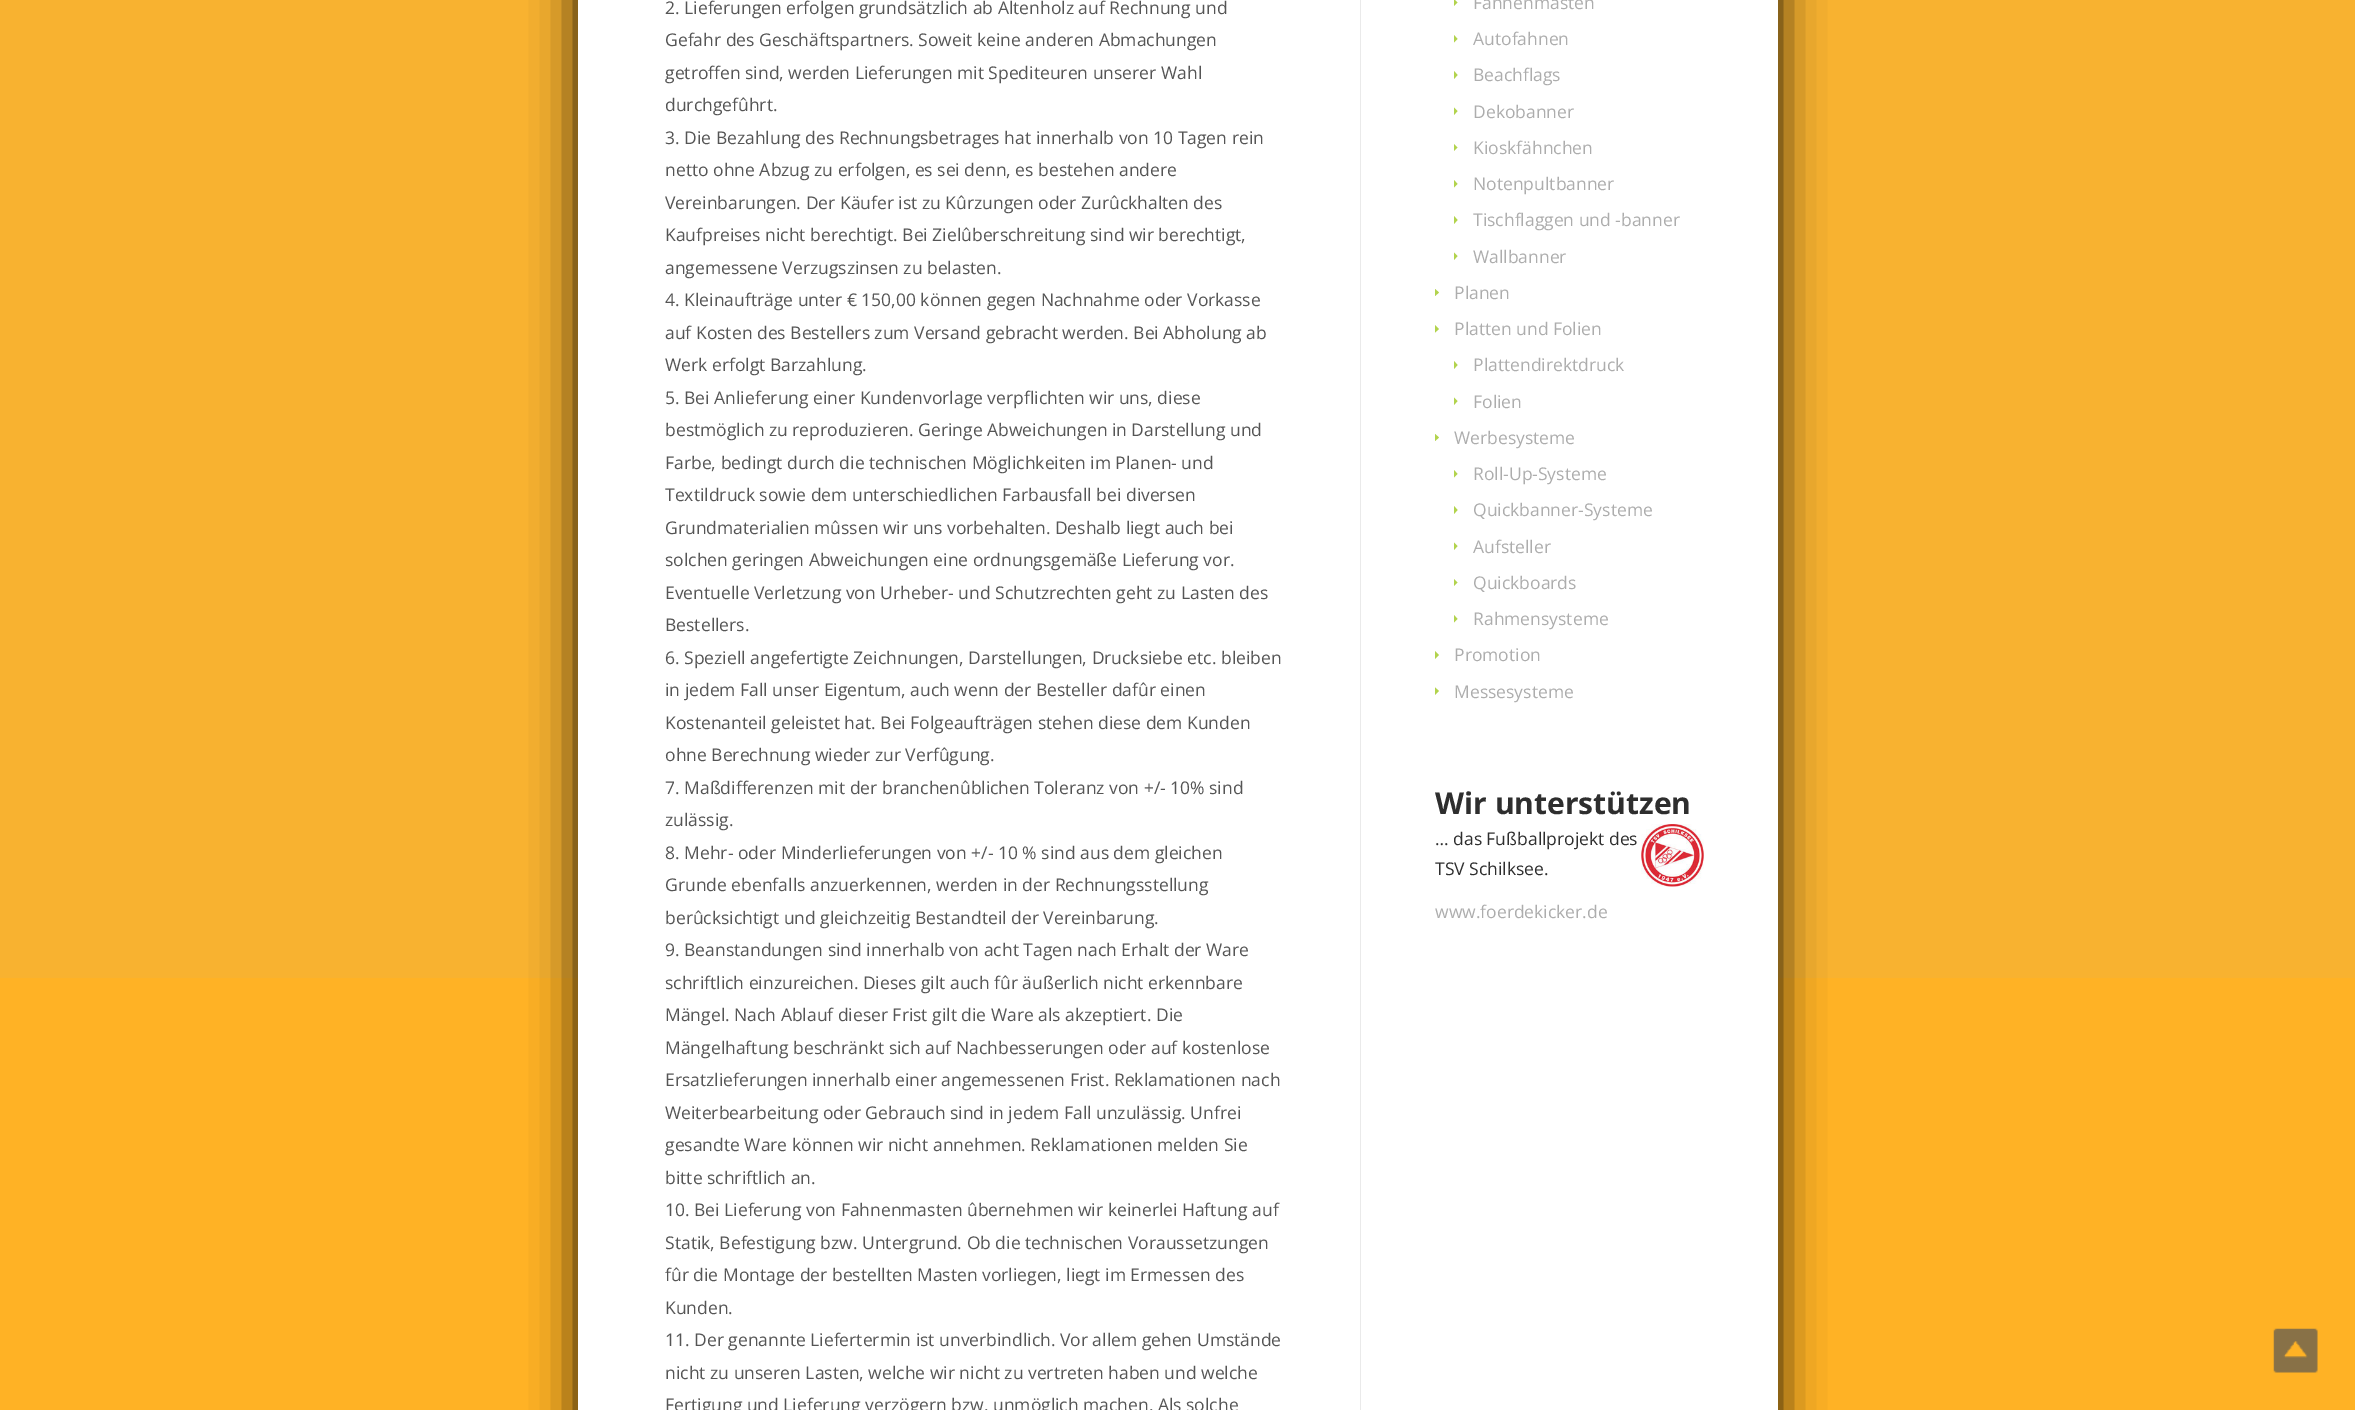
%!PS
<< /PageSize [2355 1410] /PageUsesTransparency true >> setpagedevice
/rgb { 3 { 255 div 3 1 roll } repeat setrgbcolor } def
/font { [ exch dup neg 0 0 3 -1 roll 0 0 ] selectfont } def
/alpha { dup .setfillconstantalpha .setstrokeconstantalpha } def
/roundrect { 5 dict begin { /r /h /w /y /x } { exch def } forall
  x r add y moveto x w add y 2 copy h add r arct x w add y h add x 1 index r arct
  x y h add x y r arct x y 2 copy exch w add exch r arct closepath end } def
/shadow { 12 dict begin { /a /b /q /h /w /y /x } { exch def } forall gsave /was 0 def
  9 -2 -9 { dup b mul 4 div /e exch def 1 sub .425 mul 2.718 exch exp 1 add a .99 .min exch div /now exch def
    1 1 now sub 1 was sub div sub alpha /was now def
    w h .min e 2 mul add 0 gt { x e sub y e sub w e 2 mul add h e 2 mul add
      q e add b .6 mul add w h .min 2 div e add .min 0 .max roundrect fill } if } for grestore end } def
/picture { 5 dict begin { /h /w /y /x /name } { exch def } forall
  gsave x y translate w h scale
  w h 8 [w 0 0 h 0 0] name (r) file false 3 colorimage grestore end } def
0 .pushpdf14devicefilter
0 1410 translate 1 -1 scale
4 setmiterlimit
255 178 37 rgb
0 0 2355 1410 rectfill
248 178 48 rgb
0 0 2355 978 rectfill
0 0 0 rgb
578 -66 1200 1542 0 22 0.9 shadow
255 255 255 rgb
578 0 1200 1410 rectfill
234 234 234 rgb
1360 0 1 1410 rectfill
178 211 77 rgb
1454 6 moveto 1454 -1 lineto 1457.5 2.5 lineto closepath fill
1454 42.5 moveto 1454 35 lineto 1457.5 39 lineto closepath fill
1454 79 moveto 1454 71 lineto 1457.5 75 lineto closepath fill
1454 115 moveto 1454 107.5 lineto 1457.5 111 lineto closepath fill
1454 151 moveto 1454 144 lineto 1457.5 147.5 lineto closepath fill
1454 187.5 moveto 1454 180 lineto 1457.5 184 lineto closepath fill
1454 224 moveto 1454 216 lineto 1457.5 220 lineto closepath fill
1454 260 moveto 1454 252.5 lineto 1457.5 256 lineto closepath fill
1435 296 moveto 1435 289 lineto 1439 292.5 lineto closepath fill
1435 332.5 moveto 1435 325 lineto 1439 329 lineto closepath fill
1454 369 moveto 1454 361 lineto 1457.5 365 lineto closepath fill
1454 405 moveto 1454 397.5 lineto 1457.5 401 lineto closepath fill
1435 441 moveto 1435 434 lineto 1439 437.5 lineto closepath fill
1454 477.5 moveto 1454 470 lineto 1457.5 474 lineto closepath fill
1454 514 moveto 1454 506 lineto 1457.5 510 lineto closepath fill
1454 550 moveto 1454 542.5 lineto 1457.5 546 lineto closepath fill
1454 586 moveto 1454 579 lineto 1457.5 582.5 lineto closepath fill
1454 622.5 moveto 1454 615 lineto 1457.5 619 lineto closepath fill
1435 659 moveto 1435 651 lineto 1439 655 lineto closepath fill
1435 695 moveto 1435 687.5 lineto 1439 691 lineto closepath fill
(img/1.rgb) 1641 824 63 63 picture
(img/2.rgb) 2273 1328 45 45 picture
/OpenSans-Regular 17.5 font
85 85 85 rgb
[
  [(2. Lieferungen erfolgen grundsätzlich ab Altenholz auf Rechnung und) 665 14]
  [(Gefahr des Geschäftspartners. Soweit keine anderen Abmachungen) 665 46]
  [(getroffen sind, werden Lieferungen mit Spediteuren unserer Wahl) 665 79]
  [(durchgefûhrt.) 665 111]
  [(3. Die Bezahlung des Rechnungsbetrages hat innerhalb von 10 Tagen rein) 665 144]
  [(netto ohne Abzug zu erfolgen, es sei denn, es bestehen andere) 665 176]
  [(Vereinbarungen. Der Käufer ist zu Kûrzungen oder Zurûckhalten des) 665 209]
  [(Kaufpreises nicht berechtigt. Bei Zielûberschreitung sind wir berechtigt,) 665 241]
  [(angemessene Verzugszinsen zu belasten.) 665 274]
  [(4. Kleinaufträge unter € 150,00 können gegen Nachnahme oder Vorkasse) 665 306]
  [(auf Kosten des Bestellers zum Versand gebracht werden. Bei Abholung ab) 665 339]
  [(Werk erfolgt Barzahlung.) 665 371]
  [(5. Bei Anlieferung einer Kundenvorlage verpflichten wir uns, diese) 665 404]
  [(bestmöglich zu reproduzieren. Geringe Abweichungen in Darstellung und) 665 436]
  [(Farbe, bedingt durch die technischen Möglichkeiten im Planen- und) 665 469]
  [(Textildruck sowie dem unterschiedlichen Farbausfall bei diversen) 665 501]
  [(Grundmaterialien mûssen wir uns vorbehalten. Deshalb liegt auch bei) 665 534]
  [(solchen geringen Abweichungen eine ordnungsgemäße Lieferung vor.) 665 566]
  [(Eventuelle Verletzung von Urheber- und Schutzrechten geht zu Lasten des) 665 599]
  [(Bestellers.) 665 631]
  [(6. Speziell angefertigte Zeichnungen, Darstellungen, Drucksiebe etc. bleiben) 665 664]
  [(in jedem Fall unser Eigentum, auch wenn der Besteller dafûr einen) 665 696]
  [(Kostenanteil geleistet hat. Bei Folgeaufträgen stehen diese dem Kunden) 665 729]
  [(ohne Berechnung wieder zur Verfûgung.) 665 761]
  [(7. Maßdifferenzen mit der branchenûblichen Toleranz von +/- 10% sind) 665 794]
  [(zulässig.) 665 826]
  [(8. Mehr- oder Minderlieferungen von +/- 10 % sind aus dem gleichen) 665 859]
  [(Grunde ebenfalls anzuerkennen, werden in der Rechnungsstellung) 665 891]
  [(berûcksichtigt und gleichzeitig Bestandteil der Vereinbarung.) 665 924]
  [(9. Beanstandungen sind innerhalb von acht Tagen nach Erhalt der Ware) 665 956]
  [(schriftlich einzureichen. Dieses gilt auch fûr äußerlich nicht erkennbare) 665 989]
  [(Mängel. Nach Ablauf dieser Frist gilt die Ware als akzeptiert. Die) 665 1021]
  [(Mängelhaftung beschränkt sich auf Nachbesserungen oder auf kostenlose) 665 1054]
  [(Ersatzlieferungen innerhalb einer angemessenen Frist. Reklamationen nach) 665 1086]
  [(Weiterbearbeitung oder Gebrauch sind in jedem Fall unzulässig. Unfrei) 665 1119]
  [(gesandte Ware können wir nicht annehmen. Reklamationen melden Sie) 665 1151]
  [(bitte schriftlich an.) 665 1184]
  [(10. Bei Lieferung von Fahnenmasten ûbernehmen wir keinerlei Haftung auf) 665 1216]
  [(Statik, Befestigung bzw. Untergrund. Ob die technischen Voraussetzungen) 665 1249]
  [(fûr die Montage der bestellten Masten vorliegen, liegt im Ermessen des) 665 1281]
  [(Kunden.) 665 1314]
  [(11. Der genannte Liefertermin ist unverbindlich. Vor allem gehen Umstände) 665 1346]
  [(nicht zu unseren Lasten, welche wir nicht zu vertreten haben und welche) 665 1379]
  [(Fertigung und Lieferung verzögern bzw. unmöglich machen. Als solche) 665 1411]
] { aload pop moveto show } forall
173 173 173 rgb
[
  [(Fahnenmasten) 1473 9]
  [(Autofahnen) 1473 45]
  [(Beachflags) 1473 81]
  [(Dekobanner) 1473 118]
  [(Kioskfähnchen) 1473 154]
  [(Notenpultbanner) 1473 190]
  [(Tischflaggen und -banner) 1473 226]
  [(Wallbanner) 1473 263]
  [(Planen) 1454 299]
  [(Platten und Folien) 1454 335]
  [(Plattendirektdruck) 1473 371]
  [(Folien) 1473 408]
  [(Werbesysteme) 1454 444]
  [(Roll-Up-Systeme) 1473 480]
  [(Quickbanner-Systeme) 1473 516]
  [(Aufsteller) 1473 553]
  [(Quickboards) 1473 589]
  [(Rahmensysteme) 1473 625]
  [(Promotion) 1454 661]
  [(Messesysteme) 1454 698]
] { aload pop moveto show } forall
/OpenSans-Bold 30 font
46 46 46 rgb
1435 814 moveto (Wir unterstützen) show
/OpenSans-Regular 17.5 font
1435 845 moveto (… das Fußballprojekt des) show
1435 875 moveto (TSV Schilksee.) show
173 173 173 rgb
1435 918 moveto (www.foerdekicker.de) show
.poppdf14devicefilter showpage
